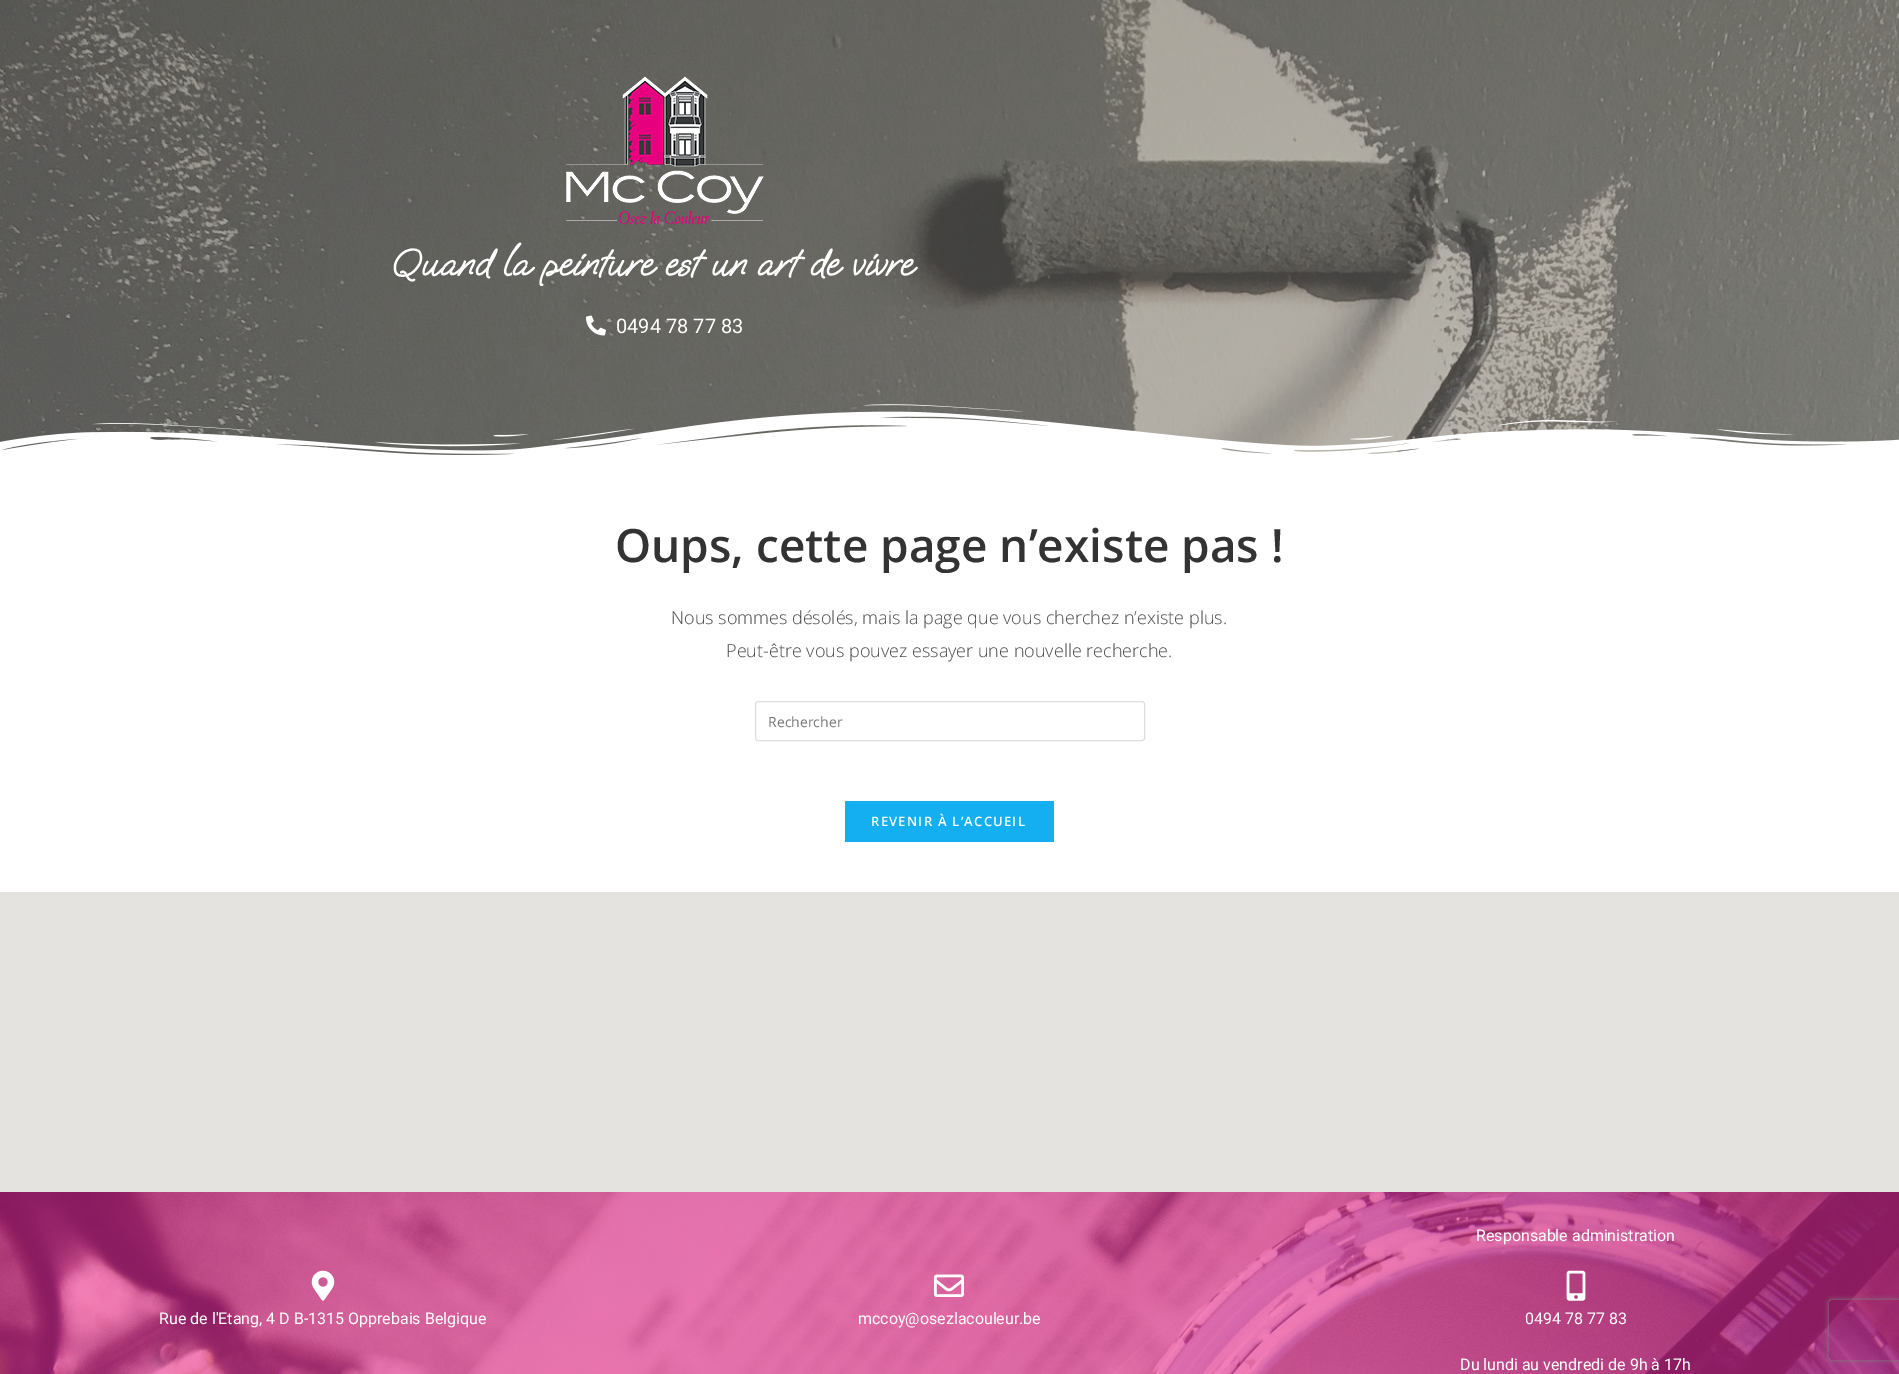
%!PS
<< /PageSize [1899 1374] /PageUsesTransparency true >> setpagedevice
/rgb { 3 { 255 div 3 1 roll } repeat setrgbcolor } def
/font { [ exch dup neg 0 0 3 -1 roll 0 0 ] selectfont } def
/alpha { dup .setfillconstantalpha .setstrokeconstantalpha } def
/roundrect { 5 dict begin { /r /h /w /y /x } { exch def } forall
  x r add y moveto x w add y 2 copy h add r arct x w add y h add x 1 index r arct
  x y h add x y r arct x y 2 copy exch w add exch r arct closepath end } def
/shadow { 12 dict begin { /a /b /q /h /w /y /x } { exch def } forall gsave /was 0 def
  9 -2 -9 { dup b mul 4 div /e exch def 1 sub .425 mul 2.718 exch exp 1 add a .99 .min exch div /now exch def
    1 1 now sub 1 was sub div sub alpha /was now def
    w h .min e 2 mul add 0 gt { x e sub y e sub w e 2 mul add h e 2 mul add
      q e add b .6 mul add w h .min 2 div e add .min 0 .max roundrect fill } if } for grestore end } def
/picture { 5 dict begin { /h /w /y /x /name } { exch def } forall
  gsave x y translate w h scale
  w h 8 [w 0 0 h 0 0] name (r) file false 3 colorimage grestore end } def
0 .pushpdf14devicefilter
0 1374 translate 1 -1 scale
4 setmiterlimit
255 255 255 rgb
0 0 1899 1374 rectfill
122 122 122 rgb
0 0 1899 455 rectfill
(img/1.rgb) 0 0 1899 455 picture
(img/2.rgb) 566 76 198 148 picture
(img/3.rgb) 586 315 20 21 picture
(img/4.rgb) 0 404 1899 58 picture
221 221 221 rgb
755.5 701.5 389 39 2.5 roundrect stroke
[
  [845 801 209 41 19 175 240]
  [0 892 1899 300 229 227 223]
  [0 1192 1899 182 230 0 126]
] { aload pop rgb rectfill } forall
(img/5.rgb) 0 1192 1899 182 picture
(img/6.rgb) 311 1270 24 31 picture
(img/7.rgb) 934 1274 30 23 picture
(img/8.rgb) 1566 1270 20 31 picture
gsave
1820 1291 moveto 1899 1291 lineto 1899 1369 lineto 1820 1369 lineto closepath 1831 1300 moveto 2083 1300 lineto 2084 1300 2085 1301 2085 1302 curveto 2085 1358 lineto 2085 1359 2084 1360 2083 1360 curveto 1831 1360 lineto 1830 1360 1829 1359 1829 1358 curveto 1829 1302 lineto 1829 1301 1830 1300 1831 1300 curveto closepath eoclip newpath
128 128 128 rgb
1829 1300 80 60 2 2.5 1 shadow
grestore
/OoohBaby-Bold 40 font
255 255 255 rgb
390 275 moveto (Quand la peinture est un art de vivre) show
/Roboto-Regular 20 font
616 333 moveto (0494 78 77 83) show
/OpenSans-SemiBold 46 font
51 51 51 rgb
615 562 moveto (Oups, cette page n’existe pas !) show
/OpenSans-Light 18 font
74 74 74 rgb
671 624 moveto (Nous sommes désolés, mais la page que vous cherchez n’existe plus.) show
726 657 moveto (Peut-être vous pouvez essayer une nouvelle recherche.) show
/OpenSans-Regular 14 font
117 117 117 rgb
768 727 moveto (Rechercher) show
/OpenSans-SemiBold 13 font
255 255 255 rgb
871 826 moveto 1.25 0 (REVENIR À L’ACCUEIL) ashow
/Roboto-Regular 16 font
[
  [(Rue de l'Etang, 4 D B-1315 Opprebais Belgique) 159 1324]
  [(mccoy@osezlacouleur.be) 858 1324]
  [(Responsable administration) 1476 1241]
  [(0494 78 77 83) 1525 1324]
  [(Du lundi au vendredi de 9h à 17h) 1460 1370]
] { aload pop moveto show } forall
.poppdf14devicefilter showpage
